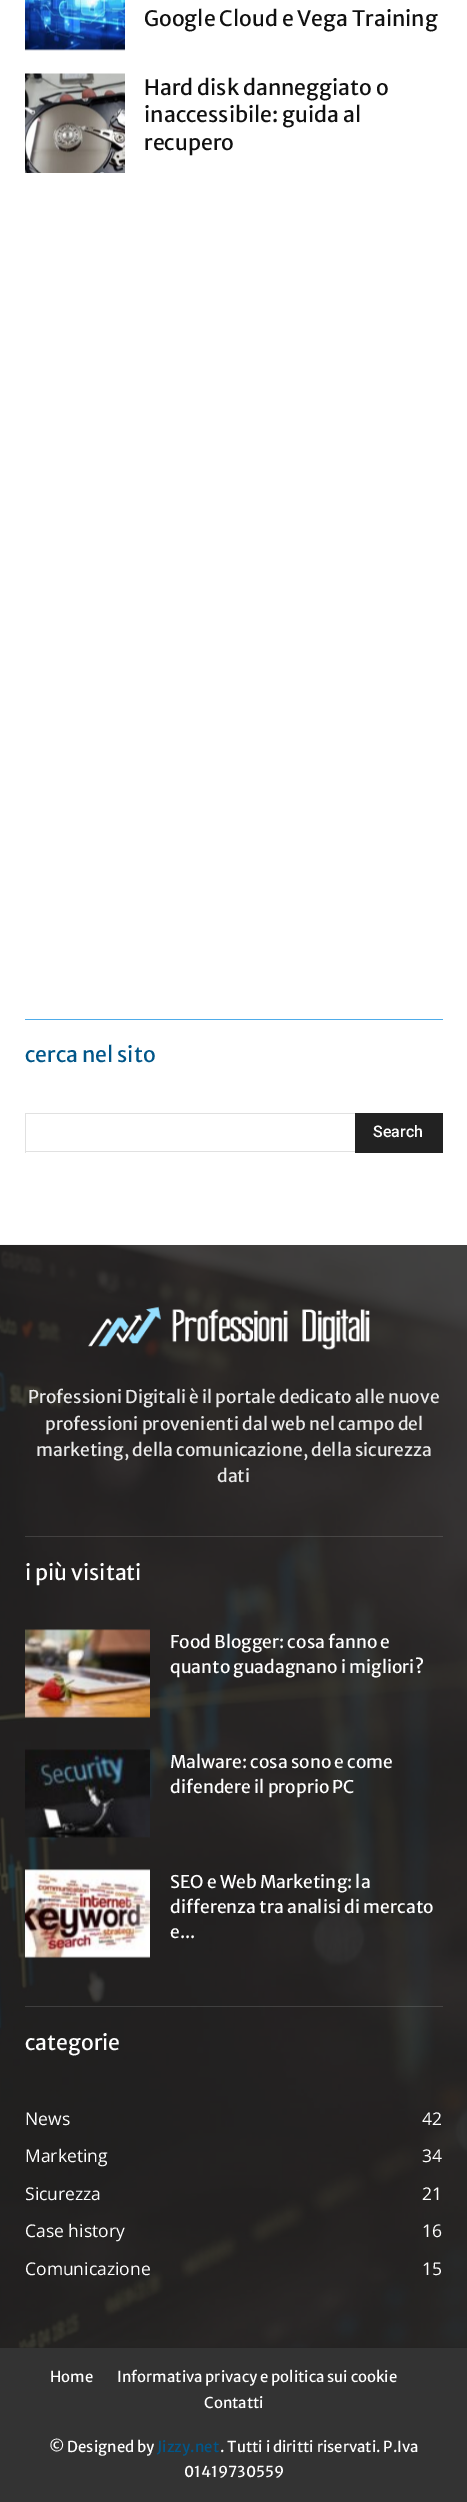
%!PS
<< /PageSize [467 2502] /PageUsesTransparency true >> setpagedevice
/rgb { 3 { 255 div 3 1 roll } repeat setrgbcolor } def
/font { [ exch dup neg 0 0 3 -1 roll 0 0 ] selectfont } def
/alpha { dup .setfillconstantalpha .setstrokeconstantalpha } def
/picture { 5 dict begin { /h /w /y /x /name } { exch def } forall
  gsave x y translate w h scale
  w h 8 [w 0 0 h 0 0] name (r) file false 3 colorimage grestore end } def
0 .pushpdf14devicefilter
0 2502 translate 1 -1 scale
4 setmiterlimit
255 255 255 rgb
0 0 467 2502 rectfill
(img/1.rgb) 25 0 100 51 picture
(img/2.rgb) 25 73 100 100 picture
[
  [25 1019 418 1 79 172 234]
  [25 1113 330 1 225 225 225]
  [25 1151 330 1 225 225 225]
  [25 1113 1 40 225 225 225]
  [355 1113 88 40 34 34 34]
  [0 1245 467 1103 34 34 34]
] { aload pop rgb rectfill } forall
(img/3.rgb) 0 1244 467 1104 picture
(img/4.rgb) 88 1306 282 44 picture
0.14 alpha
242 242 242 rgb
25 1536 418 1 rectfill
1 alpha
(img/5.rgb) 25 1629 125 89 picture
(img/6.rgb) 25 1749 125 89 picture
(img/7.rgb) 25 1869 125 89 picture
0.14 alpha
25 2006 418 1 rectfill
1 alpha
51 51 51 rgb
0 2348 467 154 rectfill
/MerriweatherSans-Regular 21.25 font
17 17 17 rgb
[
  [(Google Cloud e Vega Training) 144 26]
  [(Hard disk danneggiato o) 144 95]
  [(inaccessibile: guida al) 144 122]
  [(recupero) 144 150]
] { aload pop moveto show } forall
0 86 137 rgb
25 1062 moveto (cerca nel sito) show
/Roboto-Medium 16 font
255 255 255 rgb
373 1137 moveto (Search) show
/MerriweatherSans-Regular 17.5 font
234 234 234 rgb
[
  [(Professioni Digitali è il portale dedicato alle nuove) 28 1403]
  [(professioni provenienti dal web nel campo del) 45 1430]
  [(marketing, della comunicazione, della sicurezza) 36 1456]
  [(dati) 217 1482]
] { aload pop moveto show } forall
/MerriweatherSans-Regular 21.25 font
255 255 255 rgb
25 1580 moveto (i più visitati) show
/MerriweatherSans-Regular 17.5 font
[
  [(Food Blogger: cosa fanno e) 170 1648]
  [(quanto guadagnano i migliori?) 170 1673]
  [(Malware: cosa sono e come) 170 1768]
  [(difendere il proprio PC) 170 1793]
  [(SEO e Web Marketing: la) 170 1888]
  [(differenza tra analisi di mercato) 170 1913]
  [(e...) 170 1938]
] { aload pop moveto show } forall
/MerriweatherSans-Regular 21.25 font
25 2050 moveto (categorie) show
/OpenSans-Regular 17.5 font
[
  [(News) 25 2125]
  [(42) 422 2125]
  [(Marketing) 25 2162]
  [(34) 422 2162]
  [(Sicurezza) 25 2200]
  [(21) 422 2200]
  [(Case history) 25 2237]
  [(16) 422 2237]
  [(Comunicazione) 25 2275]
  [(15) 422 2275]
] { aload pop moveto show } forall
/MerriweatherSans-Regular 15 font
[
  [(Home) 50 2382]
  [(Informativa privacy e politica sui cookie) 117 2382]
  [(Contatti) 204 2408]
  [(© Designed by) 49 2452]
] { aload pop moveto show } forall
0 86 137 rgb
157 2452 moveto (Jizzy.net) show
255 255 255 rgb
220 2452 moveto (. Tutti i diritti riservati. P.Iva) show
184 2477 moveto (01419730559) show
.poppdf14devicefilter showpage
